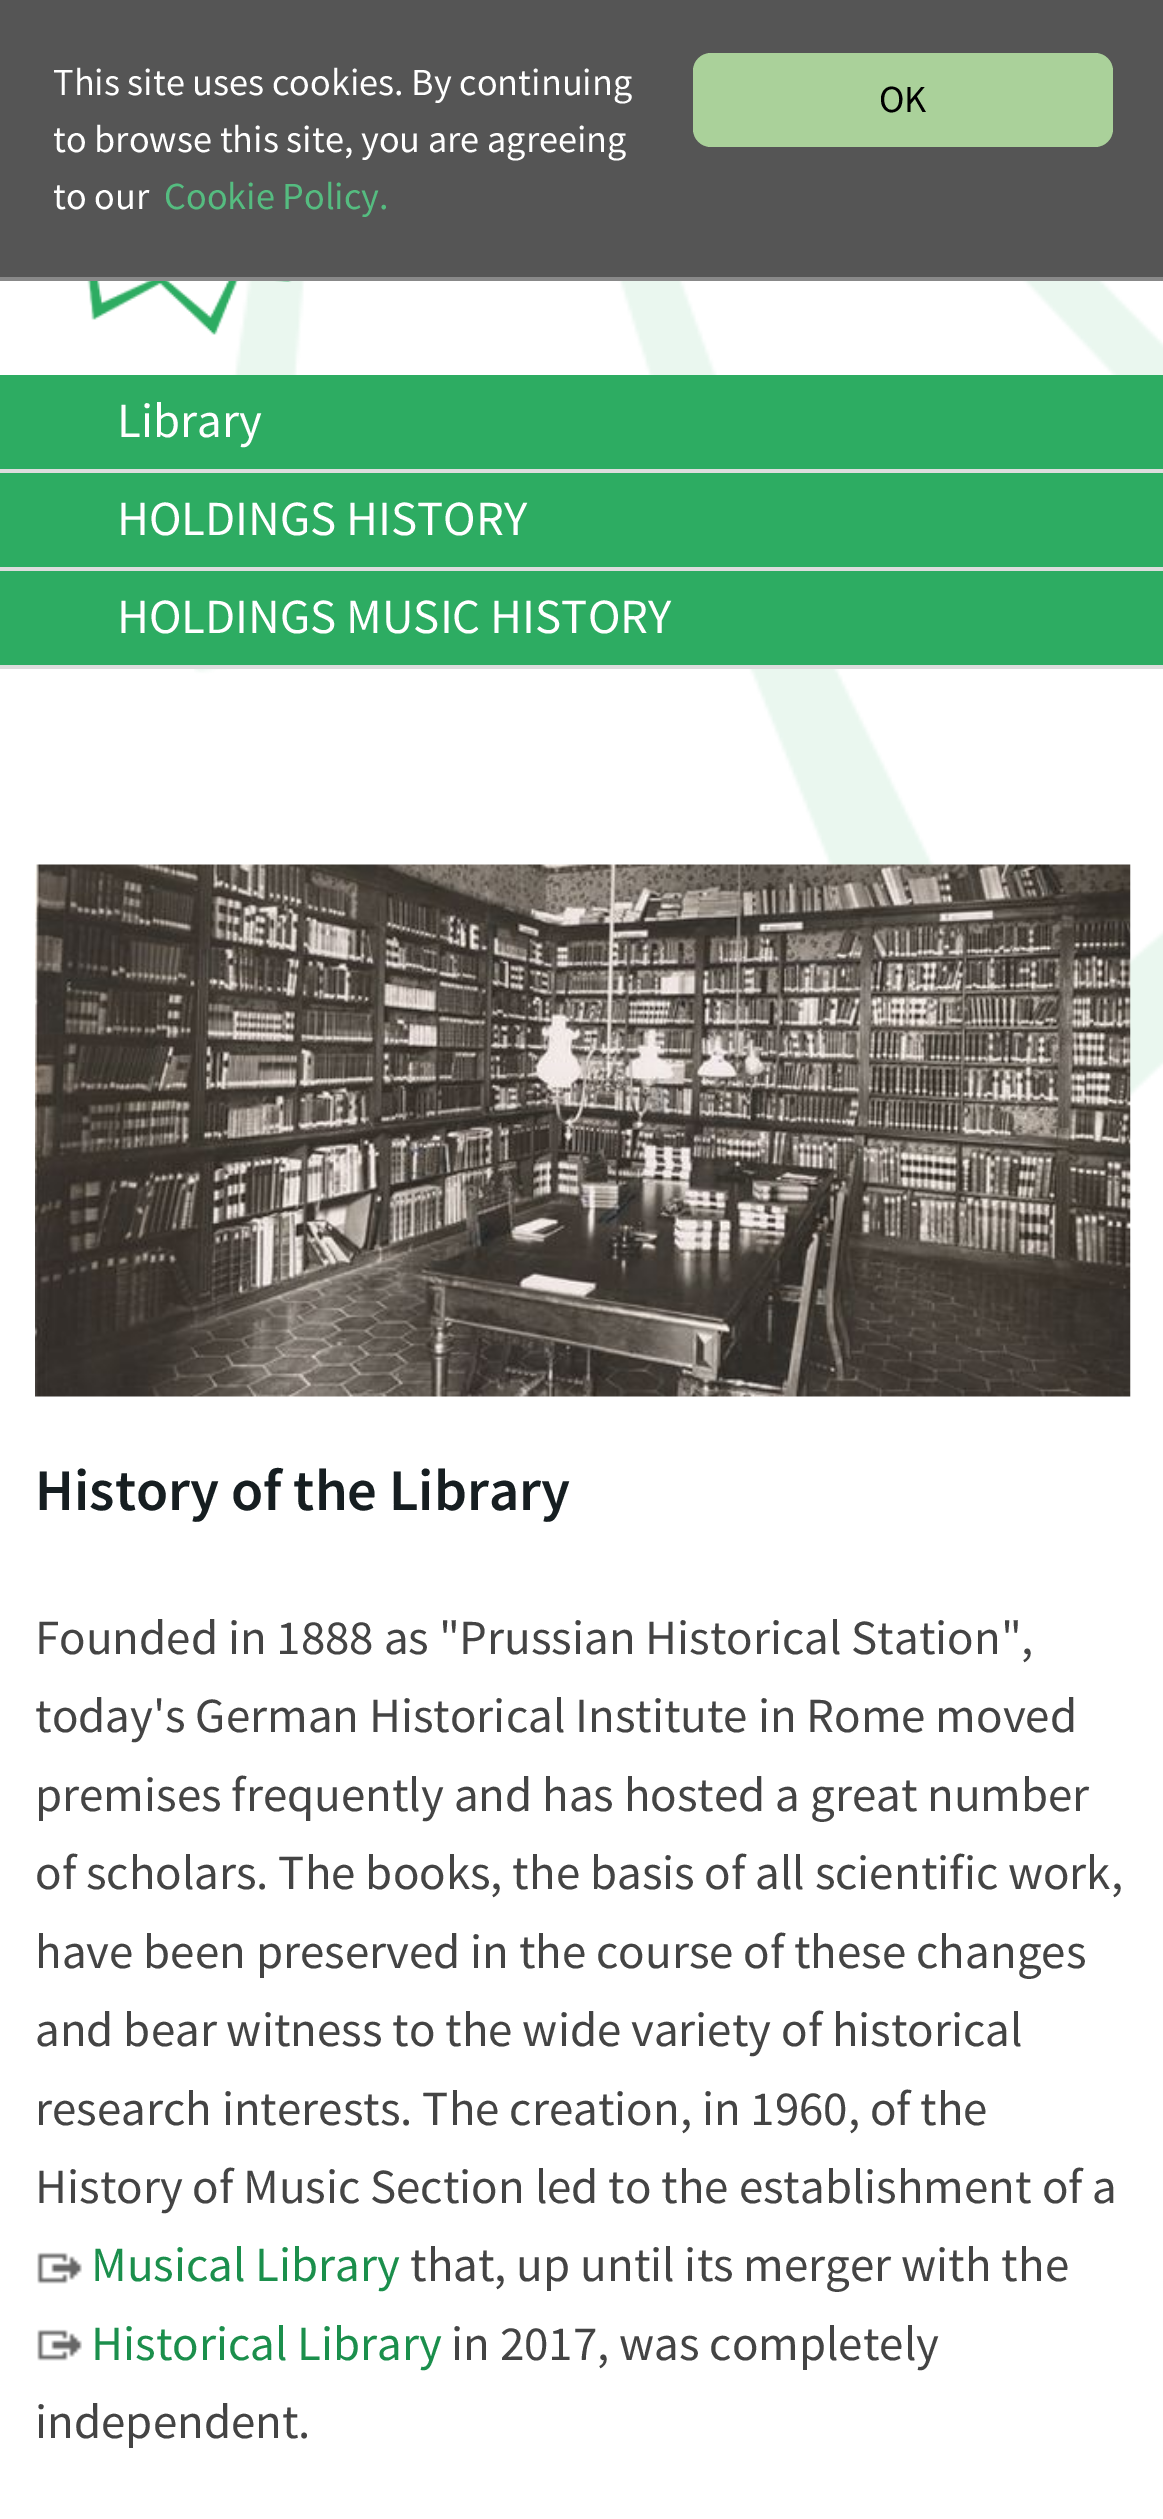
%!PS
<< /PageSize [1163 2519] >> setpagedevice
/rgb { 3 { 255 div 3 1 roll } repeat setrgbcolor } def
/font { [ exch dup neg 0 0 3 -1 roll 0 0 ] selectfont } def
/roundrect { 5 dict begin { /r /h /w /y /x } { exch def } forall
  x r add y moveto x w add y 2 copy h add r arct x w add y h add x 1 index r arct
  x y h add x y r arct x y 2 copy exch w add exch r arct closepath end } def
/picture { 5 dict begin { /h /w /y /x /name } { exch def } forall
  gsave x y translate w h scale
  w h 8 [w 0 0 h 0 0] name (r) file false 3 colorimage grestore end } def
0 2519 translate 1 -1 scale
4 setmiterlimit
255 255 255 rgb
0 0 1163 2519 rectfill
(img/1.rgb) 194 281 969 815 picture
85 85 85 rgb
0 0 1163 277 rectfill
136 136 136 rgb
0 277 1163 4 rectfill
170 209 154 rgb
693 53 420 94 18 roundrect fill
(img/2.rgb) 87 281 205 54 picture
[
  [0 375 1163 290 45 172 98]
  [0 469 1163 4 221 221 221]
  [0 567 1163 4 221 221 221]
  [0 665 1163 4 221 221 221]
] { aload pop rgb rectfill } forall
(img/3.rgb) 35 864 1096 533 picture
(img/4.rgb) 37 2252 45 32 picture
(img/4.rgb) 37 2329 45 32 picture
/SourceSansPro-Regular 38.25 font
255 255 255 rgb
[
  [(This site uses cookies. By continuing) 53 95]
  [(to browse this site, you are agreeing) 53 152]
  [(to our) 53 209]
] { aload pop moveto show } forall
85 188 128 rgb
164 209 moveto (Cookie Policy.) show
0 0 0 rgb
879 112 moveto (OK) show
/SourceSansPro-Regular 49 font
255 255 255 rgb
[
  [(Library) 117 437]
  [(HOLDINGS HISTORY) 117 535]
  [(HOLDINGS MUSIC HISTORY) 117 633]
] { aload pop moveto show } forall
/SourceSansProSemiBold-SemiBold 58.75 font
22 30 33 rgb
35 1510 moveto (History of the Library) show
/SourceSansPro-Regular 49 font
68 68 68 rgb
[
  [(Founded in 1888 as "Prussian Historical Station",) 35 1654]
  [(today's German Historical Institute in Rome moved) 35 1732]
  [(premises frequently and has hosted a great number) 35 1811]
  [(of scholars. The books, the basis of all scientific work,) 35 1889]
  [(have been preserved in the course of these changes) 35 1968]
  [(and bear witness to the wide variety of historical) 35 2046]
  [(research interests. The creation, in 1960, of the) 35 2125]
  [(History of Music Section led to the establishment of a) 35 2203]
] { aload pop moveto show } forall
27 143 76 rgb
91 2281 moveto (Musical Library) show
68 68 68 rgb
410 2281 moveto (that, up until its merger with the) show
27 143 76 rgb
91 2360 moveto (Historical Library) show
68 68 68 rgb
451 2360 moveto (in 2017, was completely) show
35 2438 moveto (independent.) show
showpage
